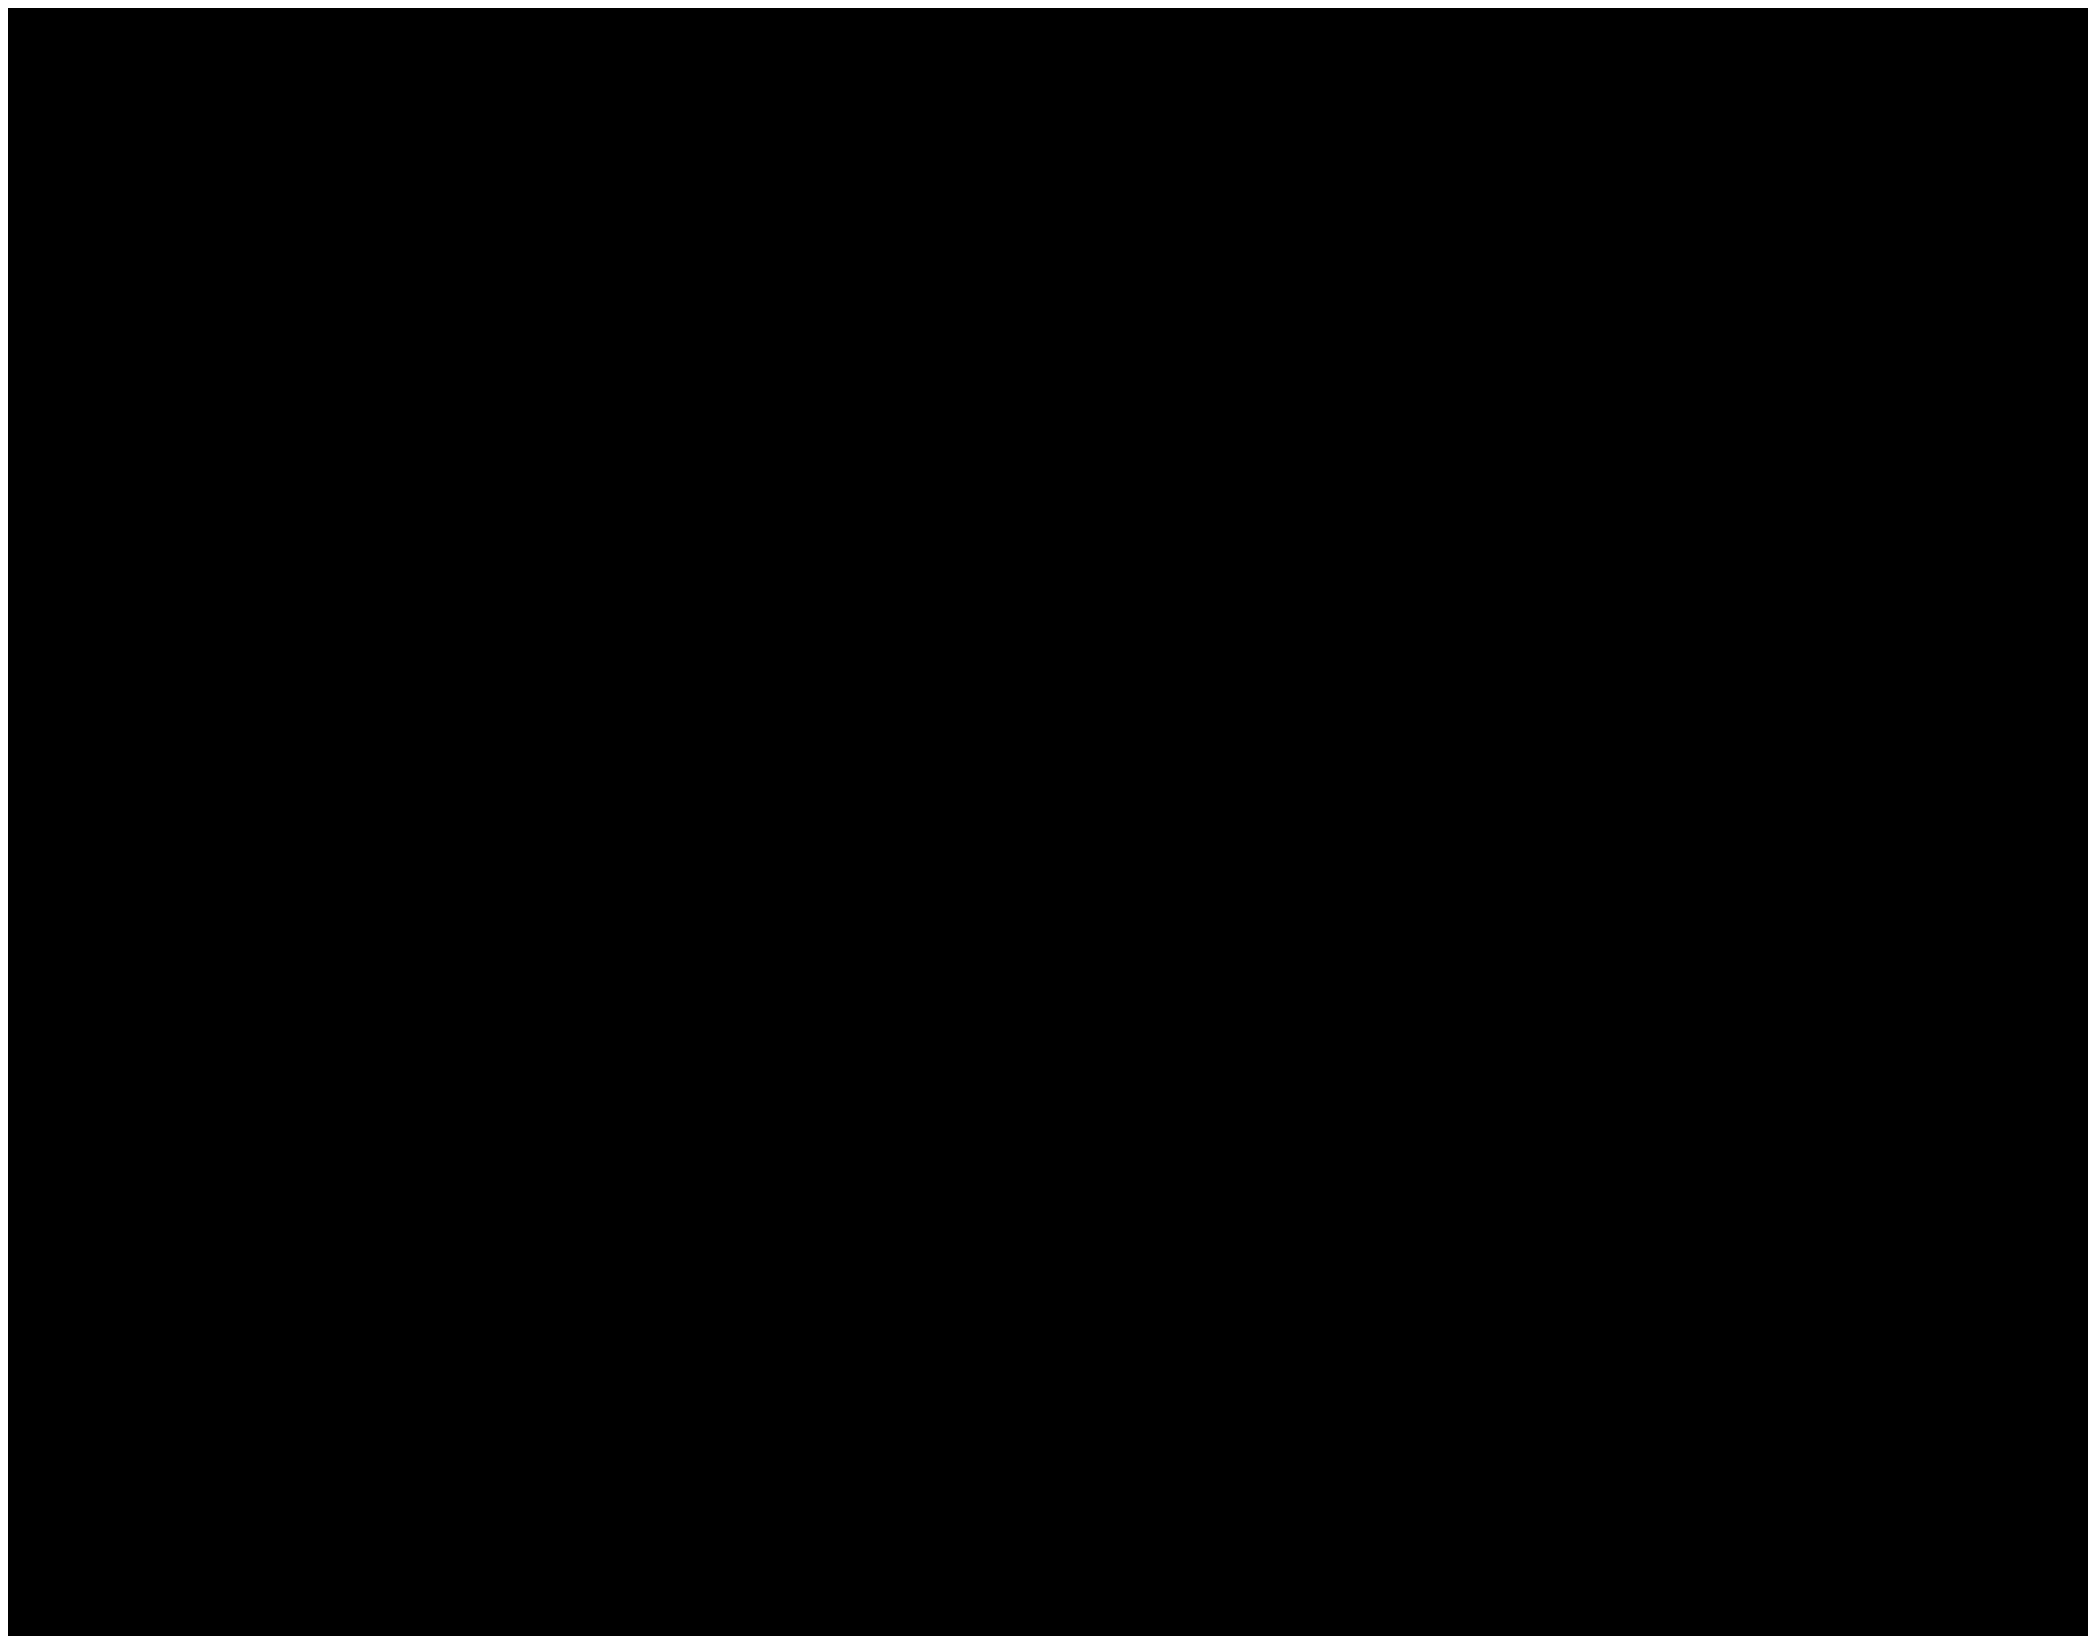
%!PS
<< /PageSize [2088 1636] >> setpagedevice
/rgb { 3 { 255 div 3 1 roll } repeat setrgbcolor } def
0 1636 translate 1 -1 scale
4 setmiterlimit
255 255 255 rgb
0 0 2088 1636 rectfill
0 0 0 rgb
8 8 2080 1628 rectfill
showpage
